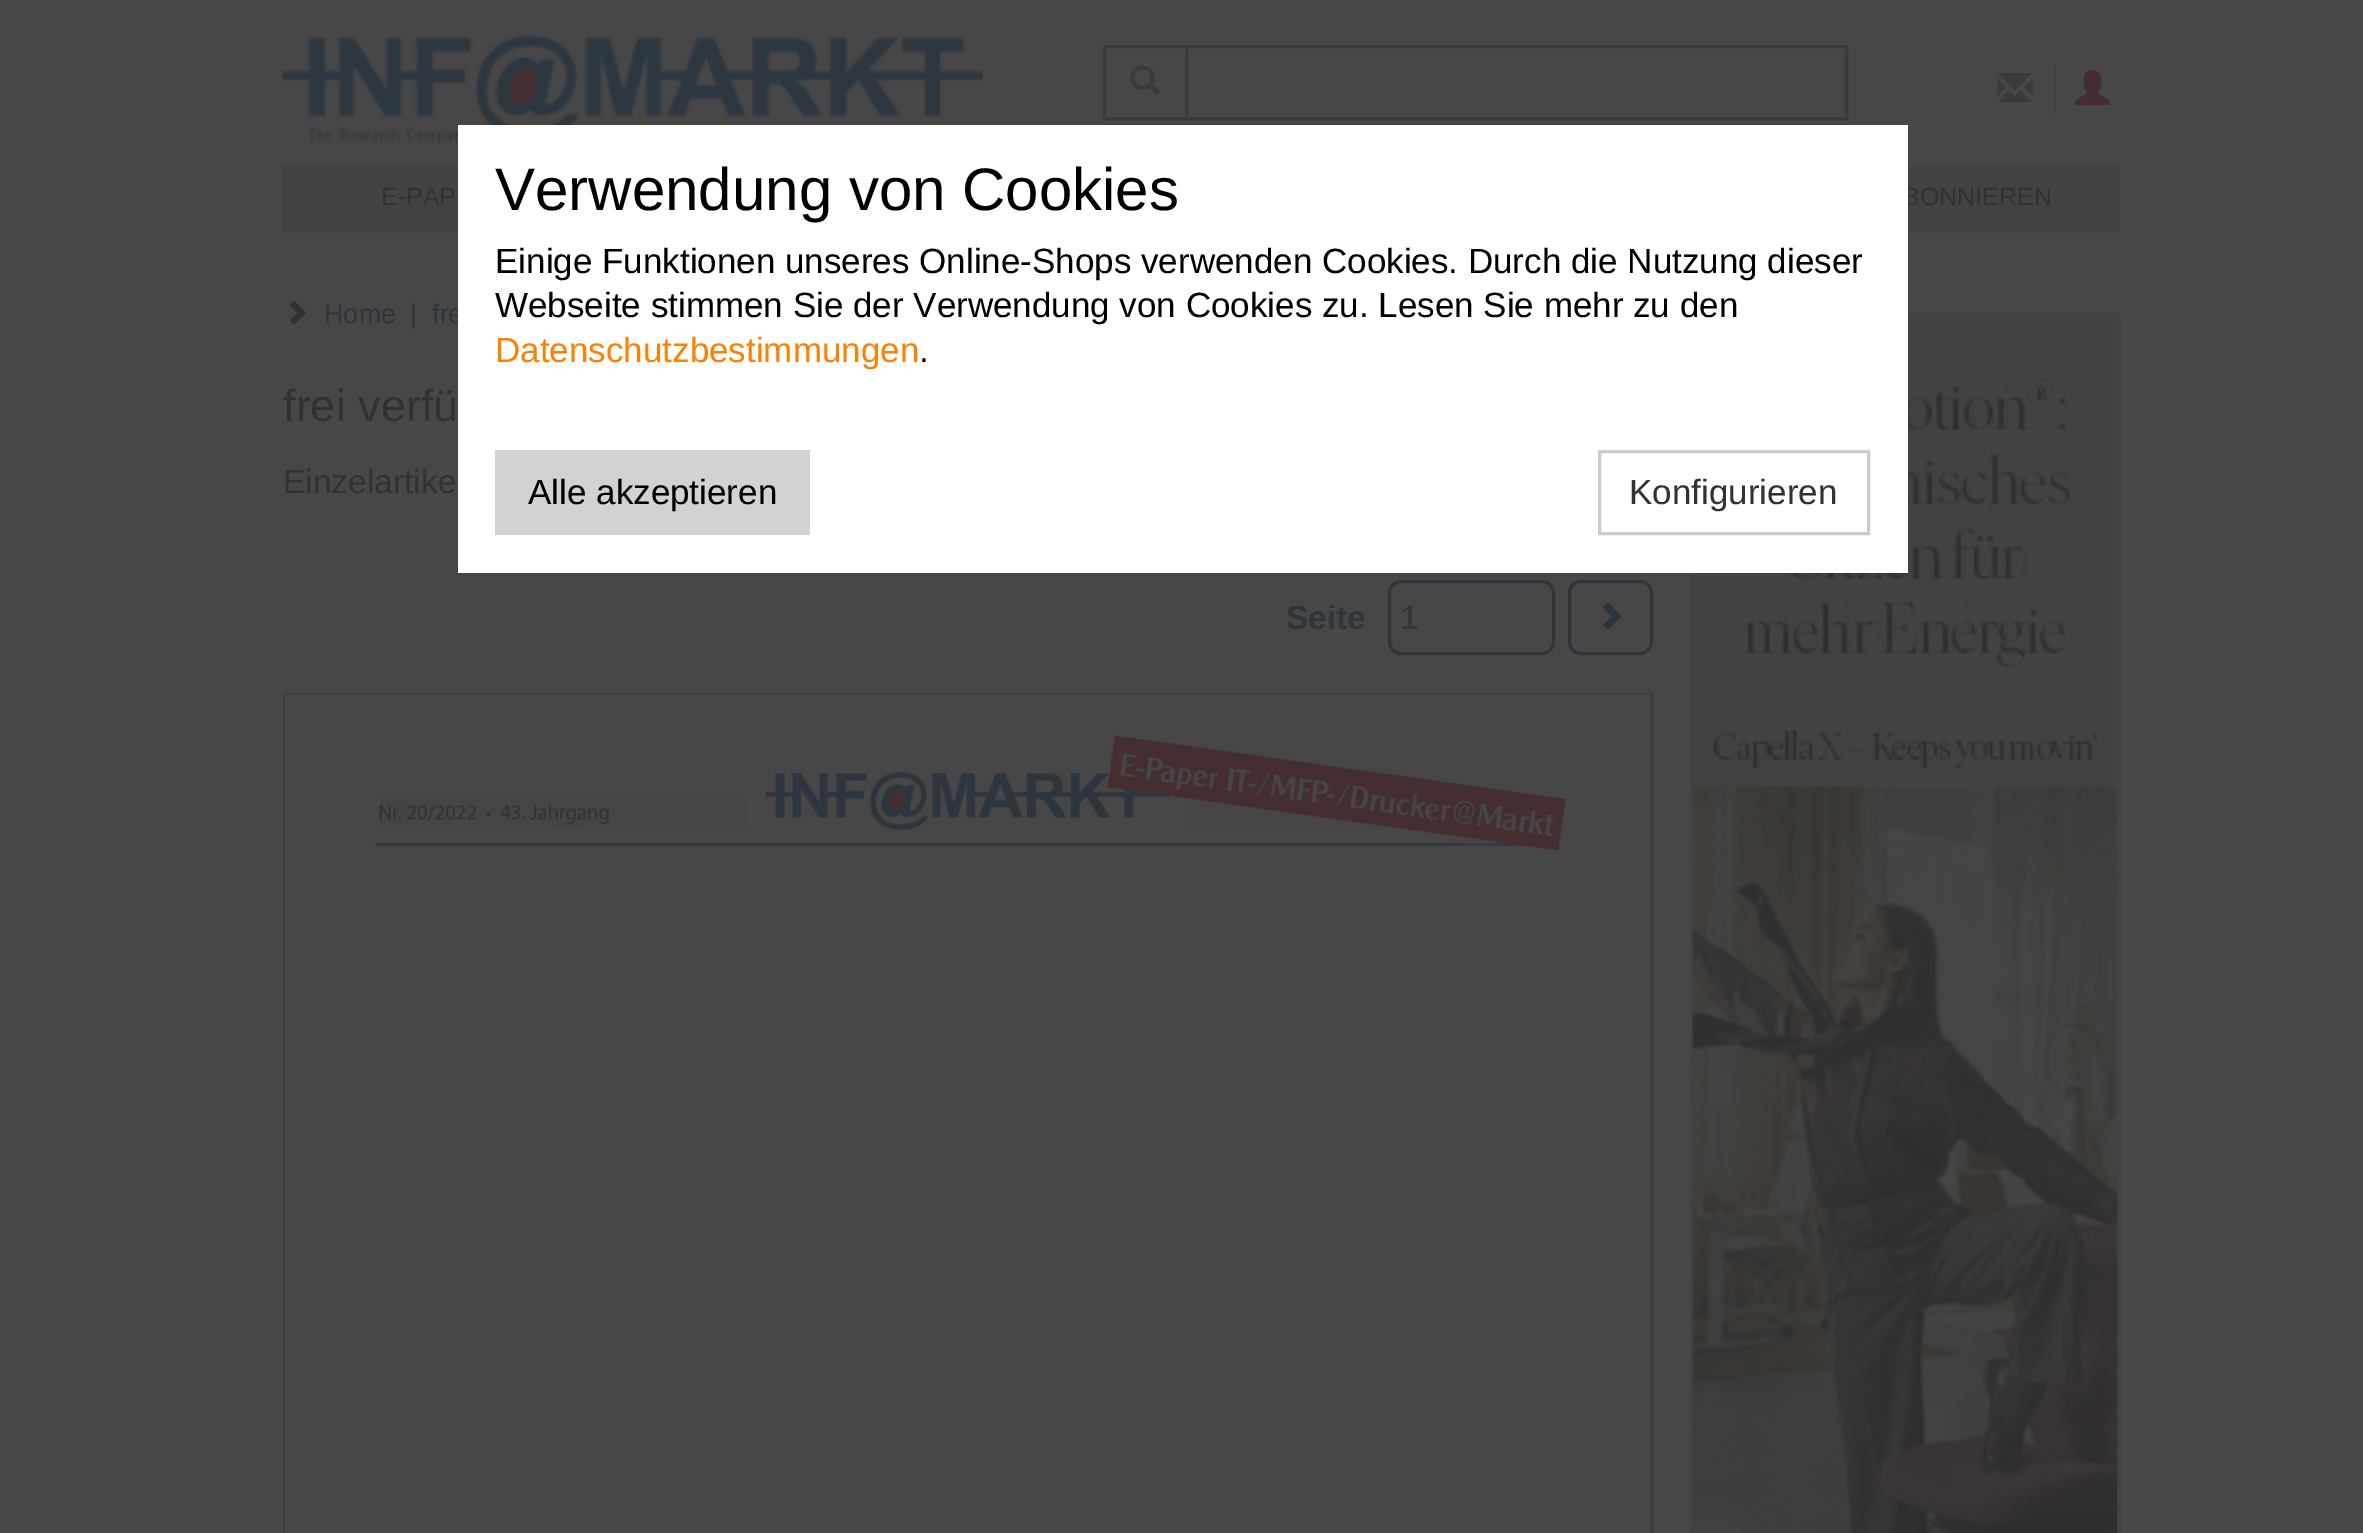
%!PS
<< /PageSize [2363 1533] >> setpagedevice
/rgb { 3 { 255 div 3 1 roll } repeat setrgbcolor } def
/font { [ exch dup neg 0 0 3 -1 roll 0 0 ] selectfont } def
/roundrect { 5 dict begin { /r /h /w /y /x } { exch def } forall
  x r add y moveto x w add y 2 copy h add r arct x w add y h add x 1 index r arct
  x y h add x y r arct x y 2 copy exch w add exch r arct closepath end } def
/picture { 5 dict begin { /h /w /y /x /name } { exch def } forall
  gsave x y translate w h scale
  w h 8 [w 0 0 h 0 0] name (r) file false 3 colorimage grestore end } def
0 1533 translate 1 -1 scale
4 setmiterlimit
71 71 71 rgb
0 0 2363 1533 rectfill
(img/1.rgb) 282 34 701 112 picture
58 58 58 rgb
3 setlinewidth
1104.5 46.5 82 72 rectstroke
(img/2.rgb) 1130 65 31 31 picture
1186.5 46.5 660 72 rectstroke
66 66 66 rgb
2053 65 3 50 rectfill
(img/3.rgb) 1997 72 36 31 picture
(img/4.rgb) 2075 70 35 35 picture
283 165 1837 68 rectfill
50 50 50 rgb
306 313 moveto 294 325 lineto 289.5 320.5 lineto 297.5 313 lineto 289.5 305 lineto 294 300.5 lineto closepath fill
45 53 61 rgb
1389.5 581.5 164 72 11.5 roundrect stroke
1569.5 581.5 82 72 11.5 roundrect stroke
1621.5 616.5 moveto 1608 630 lineto 1603 625 lineto 1611.5 616.5 lineto 1603 607.5 lineto 1608 602.5 lineto closepath fill
61 61 61 rgb
284.5 694.5 1367 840 rectstroke
(img/5.rgb) 285 695 1365 838 picture
67 67 67 rgb
1691.5 314.5 427 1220 rectstroke
71 71 71 rgb
2117 315 1 1218 rectfill
(img/6.rgb) 1692 315 426 1218 picture
/LiberationSans-Regular 25 font
50 50 50 rgb
381 205 moveto (E-PAP) show
1903 205 moveto (BONNIEREN) show
/LiberationSans-Regular 27 font
45 53 61 rgb
324 323 moveto (Home) show
50 50 50 rgb
410 323 moveto (|) show
45 53 61 rgb
432 323 moveto (fre) show
255 255 255 rgb
458 125 1450 448 rectfill
210 210 210 rgb
495 450 315 85 rectfill
/LiberationSans-Regular 35 font
0 0 0 rgb
528 504 moveto (Alle akzeptieren) show
919 362 moveto (.) show
255 128 0 rgb
495 362 moveto (Datenschutzbestimmungen) show
0 0 0 rgb
495 317 moveto (Webseite stimmen Sie der Verwendung von Cookies zu. Lesen Sie mehr zu den) show
495 273 moveto (Einige Funktionen unseres Online-Shops verwenden Cookies. Durch die Nutzung dieser) show
/LiberationSans-Regular 60 font
495 210 moveto (Verwendung von Cookies) show
204 204 204 rgb
1599.5 451.5 269 82 rectstroke
/LiberationSans-Regular 35 font
50 50 50 rgb
1629 504 moveto (Konfigurieren) show
/LiberationSans-Regular 45 font
283 421 moveto (frei verfü) show
/LiberationSans-Regular 33.5 font
283 493 moveto (Einzelartike) show
/LiberationSans-Bold 33.5 font
45 53 61 rgb
1286 629 moveto (Seite) show
/LiberationSans-Regular 33.5 font
1400 629 moveto (1) show
showpage
